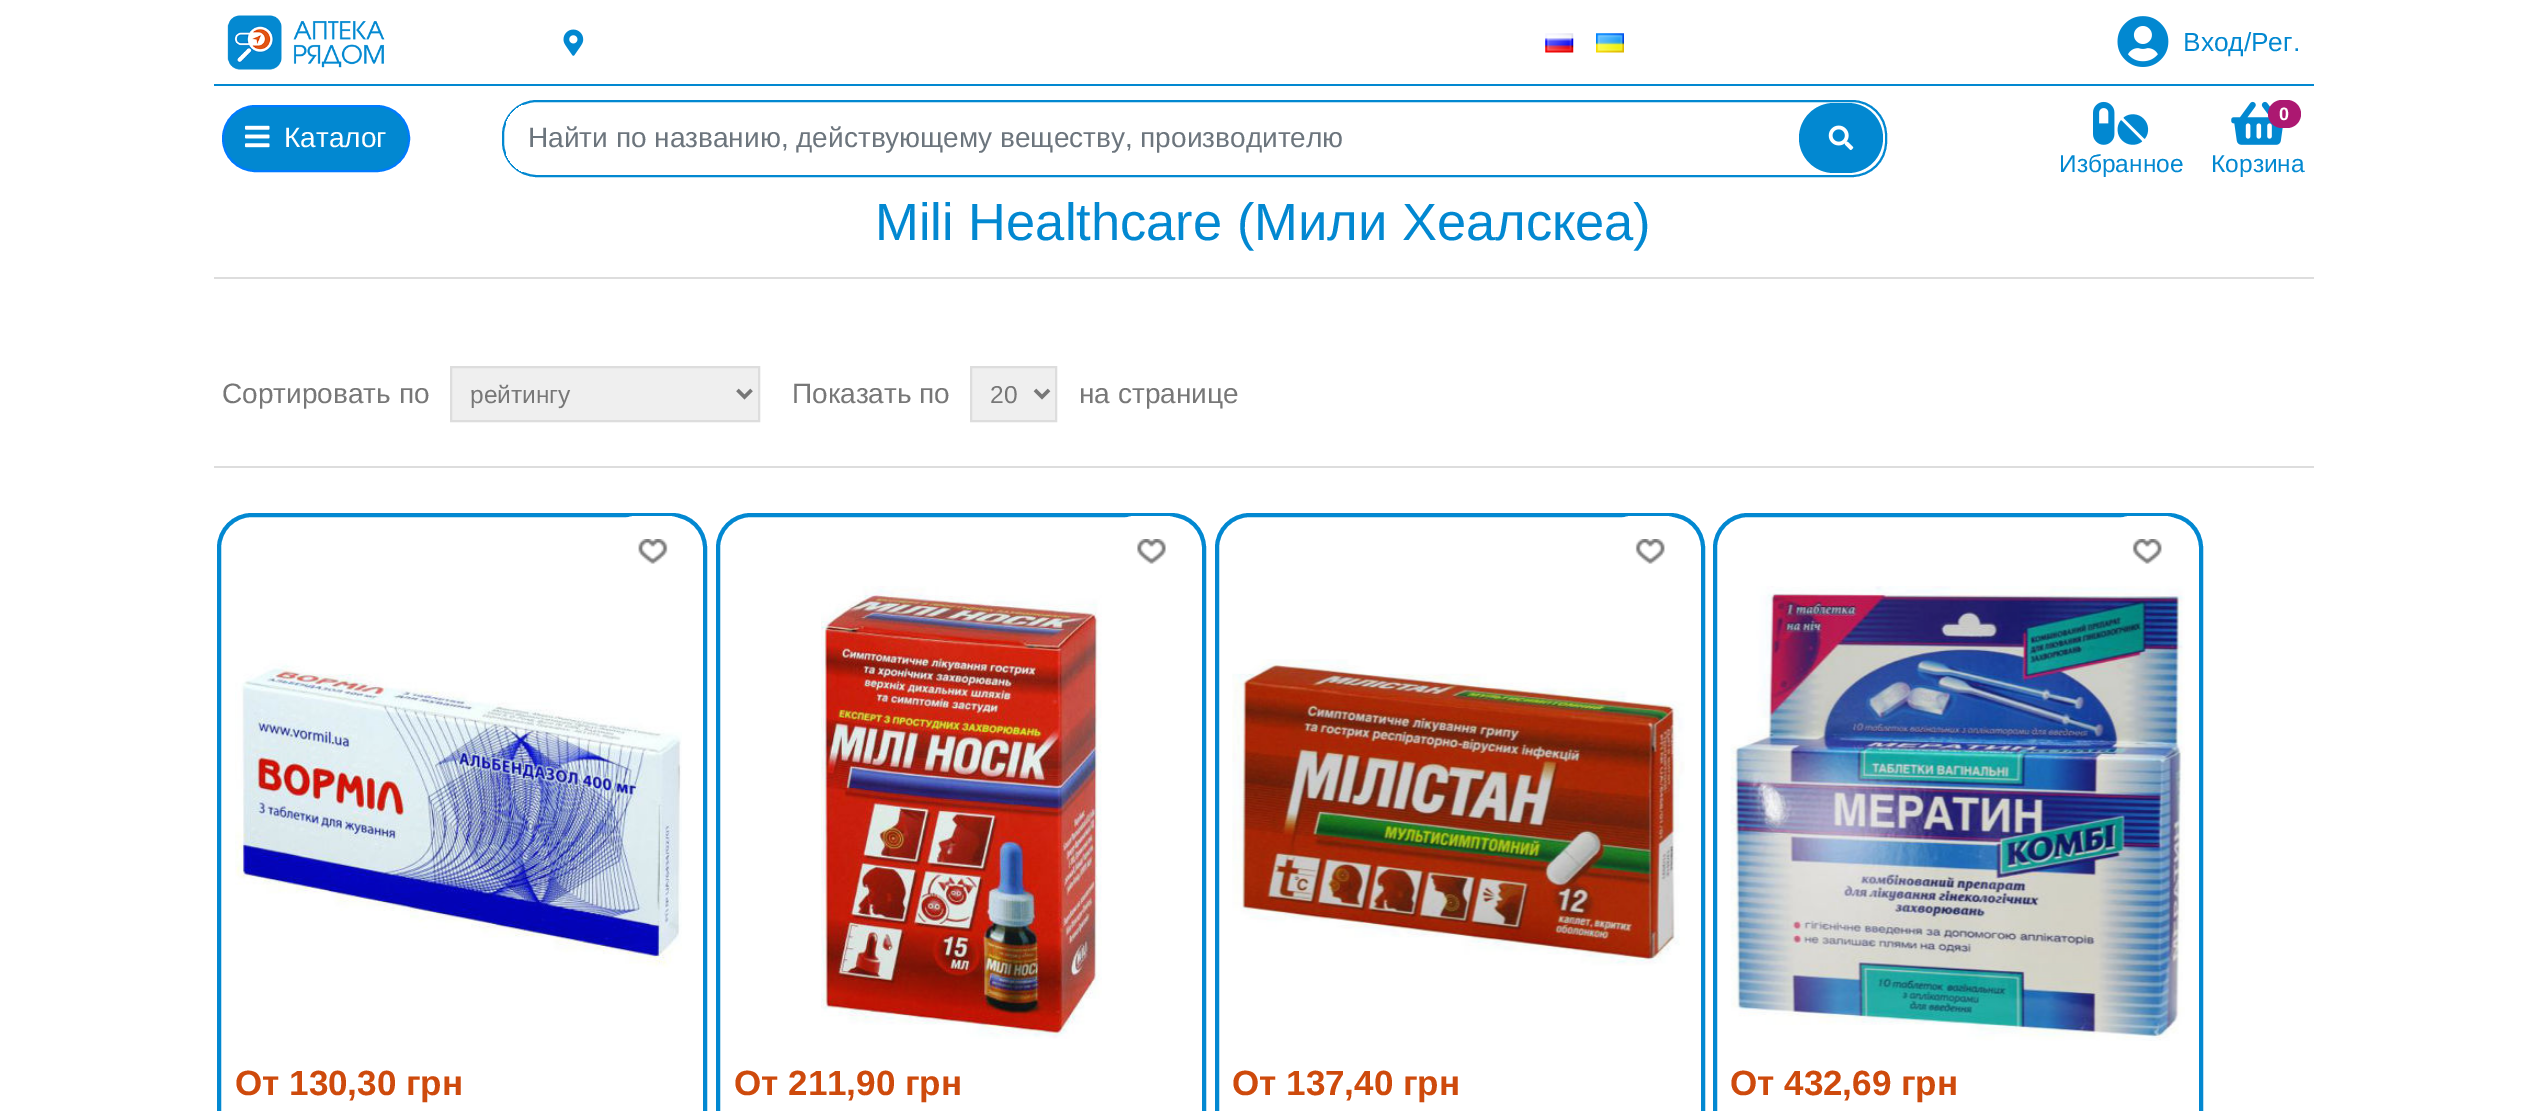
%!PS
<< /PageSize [2526 1111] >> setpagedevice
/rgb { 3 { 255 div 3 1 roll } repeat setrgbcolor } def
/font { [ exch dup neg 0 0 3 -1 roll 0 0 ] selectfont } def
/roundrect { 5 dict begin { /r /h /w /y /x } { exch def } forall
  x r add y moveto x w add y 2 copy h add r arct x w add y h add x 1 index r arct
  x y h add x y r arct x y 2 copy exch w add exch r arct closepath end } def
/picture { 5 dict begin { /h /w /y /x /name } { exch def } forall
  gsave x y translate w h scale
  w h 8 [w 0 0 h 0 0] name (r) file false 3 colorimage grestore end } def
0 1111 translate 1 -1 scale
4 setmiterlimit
255 255 255 rgb
0 0 2526 1111 rectfill
(img/1.rgb) 227 15 158 55 picture
(img/2.rgb) 563 29 21 27 picture
(img/3.rgb) 1545 33 29 20 picture
(img/4.rgb) 1596 33 28 20 picture
(img/5.rgb) 2117 16 52 51 picture
2 136 209 rgb
214 84 2100 2 rectfill
223 106 186 65 32.5 roundrect gsave fill grestore
0 123 255 rgb
2 setlinewidth
stroke
(img/6.rgb) 245 125 25 23 picture
2 136 209 rgb
503 101 1383 75 34 roundrect stroke
gsave
504 102 1381 73 33 roundrect clip newpath
255 255 255 rgb
513 105 moveto 1796 105 lineto 1796 172 lineto 513 172 lineto 509 172 506 169 506 165 curveto 506 112 lineto 506 108 509 105 513 105 curveto closepath fill
grestore
1799 103 84 70 35 roundrect fill
(img/7.rgb) 1828 125 26 25 picture
(img/8.rgb) 2093 101 56 44 picture
(img/9.rgb) 2231 101 52 44 picture
172 24 113 rgb
2268 100 33 28 14 roundrect fill
221 221 221 rgb
214 277 2100 2 rectfill
214 466 2100 2 rectfill
239 239 239 rgb
451 367 moveto 759 367 lineto 759 421 lineto 451 421 lineto closepath gsave fill grestore
221 221 221 rgb
stroke
119 119 119 rgb
3.5 setlinewidth
737.5 390 moveto 744.5 397 lineto 751.5 390 lineto stroke
239 239 239 rgb
971 367 moveto 1056 367 lineto 1056 421 lineto 971 421 lineto closepath gsave fill grestore
221 221 221 rgb
2 setlinewidth
stroke
119 119 119 rgb
3.5 setlinewidth
1035 390 moveto 1042 397 lineto 1049 390 lineto stroke
2 136 209 rgb
4 setlinewidth
219 515 486 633 33 roundrect stroke
255 255 255 rgb
614 516 76 70 21 roundrect fill
(img/10.rgb) 638 539 30 25 picture
(img/11.rgb) 235 660 447 308 picture
2 136 209 rgb
718 515 486 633 33 roundrect stroke
255 255 255 rgb
1113 516 75 70 21 roundrect fill
(img/12.rgb) 1137 539 29 25 picture
(img/13.rgb) 821 586 281 453 picture
2 136 209 rgb
1217 515 486 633 33 roundrect stroke
255 255 255 rgb
1610 516 77 70 21 roundrect fill
(img/14.rgb) 1635 539 30 25 picture
(img/15.rgb) 1232 659 453 307 picture
2 136 209 rgb
1715 515 486 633 33 roundrect stroke
255 255 255 rgb
2109 516 77 70 21 roundrect fill
(img/16.rgb) 2132 539 30 25 picture
(img/17.rgb) 1730 586 455 455 picture
/LiberationSans-Regular 26.25 font
2 136 209 rgb
2183 51 moveto (Вход/Рег.) show
/LiberationSans-Regular 28 font
255 255 255 rgb
284 147 moveto (Каталог) show
108 117 125 rgb
528 147 moveto (Найти по названию, действующему веществу, производителю) show
/LiberationSans-Regular 24.5 font
2 136 209 rgb
2059 172 moveto (Избранное) show
/LiberationSans-Bold 18 font
255 255 255 rgb
2279 120 moveto (0) show
/LiberationSans-Regular 24.5 font
2 136 209 rgb
2211 172 moveto (Корзина) show
/LiberationSans-Regular 52.5 font
875 240 moveto (Mili Healthcare \(Мили Хеалскеа\)) show
/LiberationSans-Regular 28 font
119 119 119 rgb
222 403 moveto (Сортировать по) show
/LiberationSans-Regular 24.5 font
470 403 moveto (рейтингу) show
/LiberationSans-Regular 28 font
792 403 moveto (Показать по) show
/LiberationSans-Regular 24.5 font
990 403 moveto (20) show
/LiberationSans-Regular 28 font
1079 403 moveto (на странице) show
/LiberationSans-Bold 35 font
206 74 12 rgb
[
  [(От 130,30 грн) 235 1095]
  [(От 211,90 грн) 734 1095]
  [(От 137,40 грн) 1232 1095]
  [(От 432,69 грн) 1730 1095]
] { aload pop moveto show } forall
showpage
